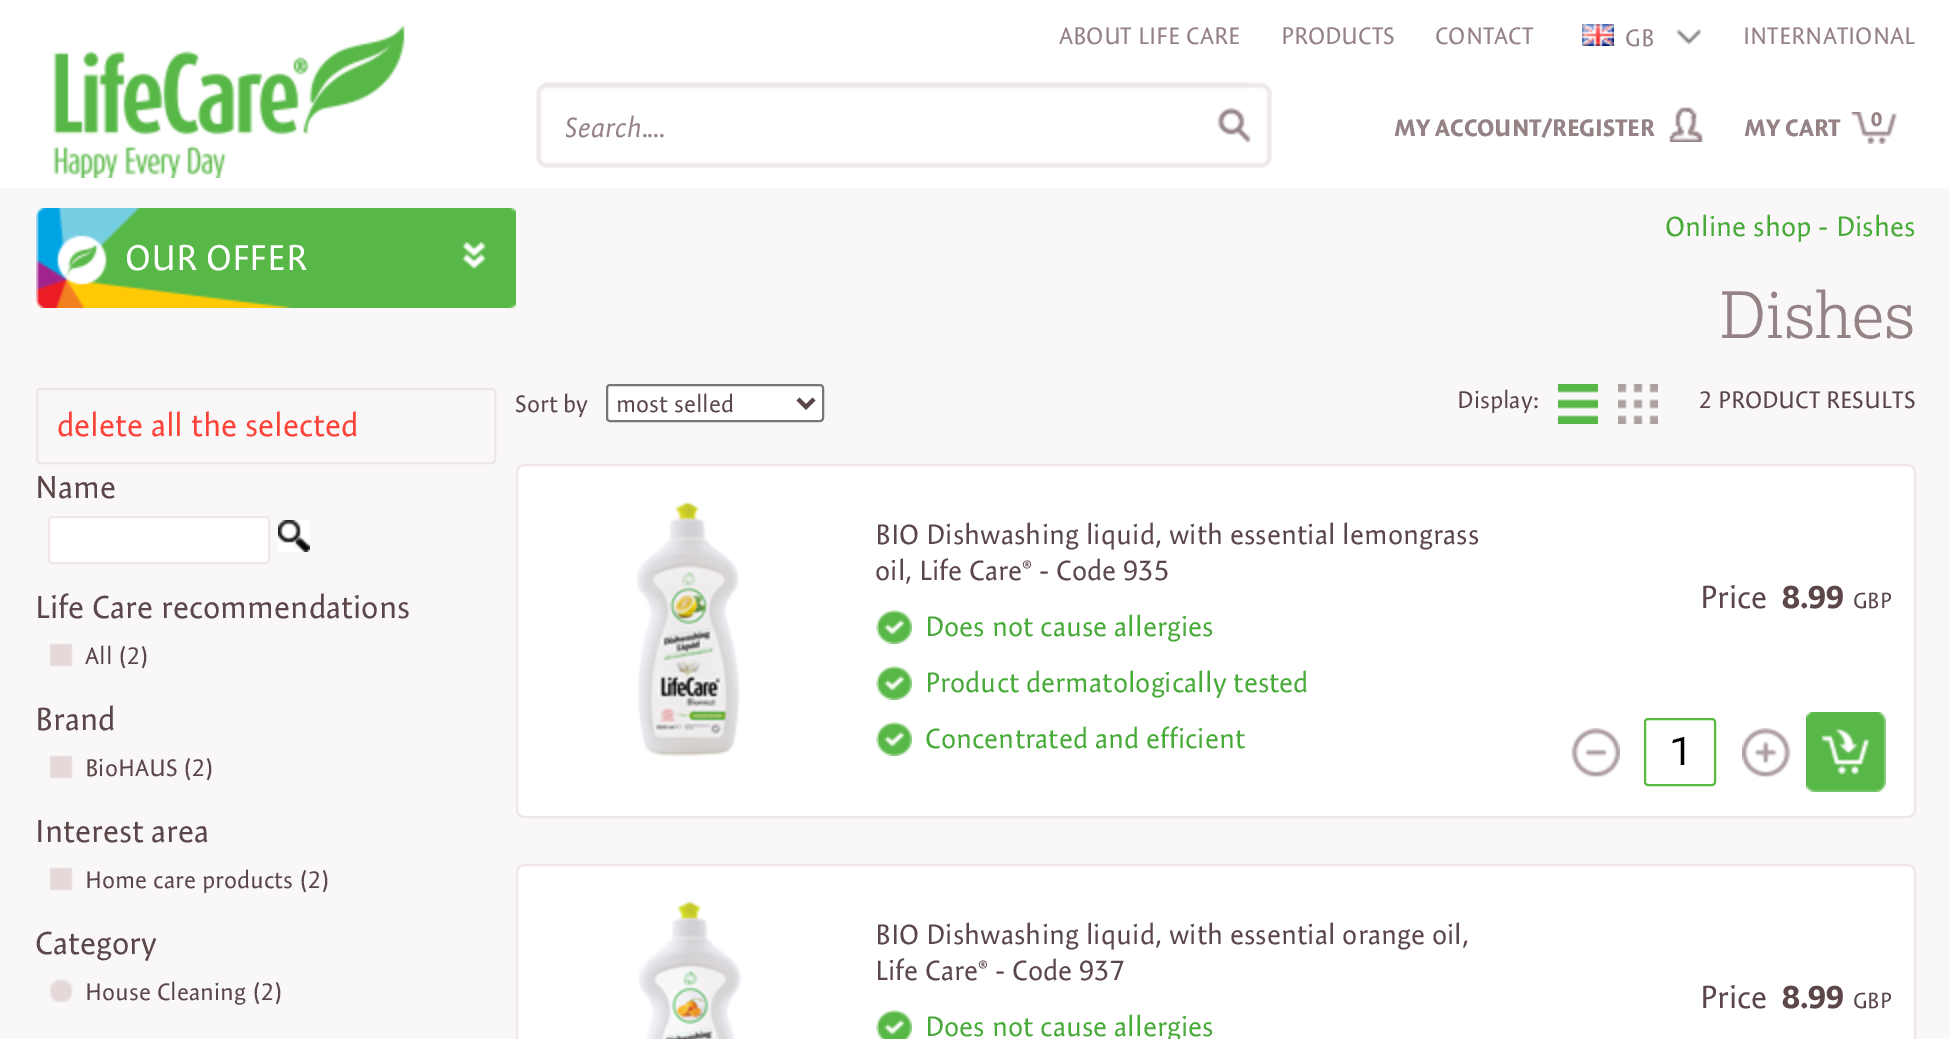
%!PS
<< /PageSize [1950 1039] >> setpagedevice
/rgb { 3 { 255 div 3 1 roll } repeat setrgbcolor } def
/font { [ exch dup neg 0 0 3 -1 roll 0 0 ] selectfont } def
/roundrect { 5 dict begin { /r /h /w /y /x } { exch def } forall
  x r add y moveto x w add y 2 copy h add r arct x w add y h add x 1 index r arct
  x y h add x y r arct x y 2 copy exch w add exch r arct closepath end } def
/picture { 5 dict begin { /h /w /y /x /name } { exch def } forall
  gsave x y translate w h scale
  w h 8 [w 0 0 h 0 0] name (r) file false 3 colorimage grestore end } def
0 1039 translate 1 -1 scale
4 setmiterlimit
249 247 247 rgb
0 0 1950 1039 rectfill
255 255 255 rgb
0 0 1950 188 rectfill
(img/1.rgb) 53 26 352 152 picture
(img/2.rgb) 1582 24 32 22 picture
(img/3.rgb) 1675 29 27 16 picture
(img/4.rgb) 536 83 8 85 picture
(img/5.rgb) 544 82 728 86 picture
(img/6.rgb) 1669 107 34 35 picture
(img/7.rgb) 1850 112 47 32 picture
(img/8.rgb) 36 208 480 100 picture
(img/9.rgb) 462 242 24 27 picture
238 230 231 rgb
2 setlinewidth
37 389 458 74 3 roundrect stroke
255 255 255 rgb
49 517 220 46 3 roundrect gsave fill grestore
238 230 231 rgb
stroke
(img/10.rgb) 278 520 32 32 picture
(img/11.rgb) 49 643 24 24 picture
(img/11.rgb) 49 755 24 24 picture
(img/11.rgb) 49 867 24 24 picture
(img/12.rgb) 49 979 24 24 picture
255 255 255 rgb
607 385 216 36 3 roundrect gsave fill grestore
118 118 118 rgb
stroke
91 71 74 rgb
4 setlinewidth
798 399 moveto 806 407 lineto 814 399 lineto stroke
(img/13.rgb) 1558 384 40 40 picture
(img/14.rgb) 1618 384 40 40 picture
255 255 255 rgb
517 465 1398 352 7 roundrect gsave fill grestore
238 230 231 rgb
2 setlinewidth
stroke
(img/15.rgb) 636 501 104 256 picture
(img/16.rgb) 876 610 36 34 picture
(img/16.rgb) 876 666 36 34 picture
(img/16.rgb) 876 722 36 34 picture
(img/17.rgb) 1571 728 49 50 picture
90 186 66 rgb
1645 719 70 66 3 roundrect stroke
(img/18.rgb) 1742 728 49 50 picture
(img/19.rgb) 1806 712 80 80 picture
255 255 255 rgb
517 865 1398 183 7 roundrect gsave fill grestore
238 230 231 rgb
stroke
(img/20.rgb) 638 901 104 138 picture
(img/21.rgb) 876 1010 36 29 picture
/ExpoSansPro-Regular 24 font
149 130 133 rgb
[
  [(ABOUT LIFE CARE) 1059 44]
  [(PRODUCTS) 1281 44]
  [(CONTACT) 1435 44]
  [(GB) 1625 46]
  [(INTERNATIONAL) 1743 44]
] { aload pop moveto show } forall
gsave
566 110 604 36 rectclip
/ExpoSansPro-Italic 28 font
565 137 moveto (Search....) show
grestore
/ExpoSansPro-Bold 24 font
1394 136 moveto (MY ACCOUNT/REGISTER) show
1744 136 moveto (MY CART) show
/ExpoSansPro-Bold 20 font
1871 126 moveto (0) show
/ExpoSansPro-Regular 28 font
72 170 57 rgb
1665 236 moveto (Online shop - Dishes) show
/ExpoSansPro-Regular 36 font
255 255 255 rgb
125 270 moveto (OUR OFFER) show
/ExpoSansPro-Regular 32 font
252 67 57 rgb
57 436 moveto (delete all the selected) show
91 71 74 rgb
35 498 moveto (Name) show
35 618 moveto (Life Care recommendations) show
/ExpoSansPro-Regular 24 font
85 664 moveto (All \(2\)) show
/ExpoSansPro-Regular 32 font
35 730 moveto (Brand) show
/ExpoSansPro-Regular 24 font
85 776 moveto (BioHAUS \(2\)) show
/ExpoSansPro-Regular 32 font
35 842 moveto (Interest area) show
/ExpoSansPro-Regular 24 font
85 888 moveto (Home care products \(2\)) show
/ExpoSansPro-Regular 32 font
35 954 moveto (Category) show
/ExpoSansPro-Regular 24 font
85 1000 moveto (House Cleaning \(2\)) show
/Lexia-Light 64 font
149 130 133 rgb
1720 338 moveto (Dishes) show
/ExpoSansPro-Regular 24 font
91 71 74 rgb
[
  [(Sort by) 515 412]
  [(most selled) 616 412]
  [(Display:) 1457 408]
  [(2 PRODUCT RESULTS) 1699 408]
] { aload pop moveto show } forall
/ExpoSansPro-Regular 28 font
875 544 moveto (BIO Dishwashing liquid, with essential lemongrass) show
875 580 moveto (oil, Life Care® - Code 935) show
72 170 57 rgb
[
  [(Does not cause allergies) 925 636]
  [(Product dermatologically tested) 925 692]
  [(Concentrated and efficient) 925 748]
] { aload pop moveto show } forall
/ExpoSansPro-Regular 32 font
91 71 74 rgb
1700 608 moveto (Price) show
/ExpoSansPro-Bold 32 font
1782 608 moveto (8.99) show
/ExpoSansPro-Regular 22 font
1853 608 moveto (GBP) show
/ExpoSansPro-Regular 40 font
0 0 0 rgb
1670 765 moveto (1) show
/ExpoSansPro-Regular 28 font
91 71 74 rgb
875 944 moveto (BIO Dishwashing liquid, with essential orange oil,) show
875 980 moveto (Life Care® - Code 937) show
72 170 57 rgb
925 1036 moveto (Does not cause allergies) show
/ExpoSansPro-Regular 32 font
91 71 74 rgb
1700 1008 moveto (Price) show
/ExpoSansPro-Bold 32 font
1782 1008 moveto (8.99) show
/ExpoSansPro-Regular 22 font
1853 1008 moveto (GBP) show
showpage
